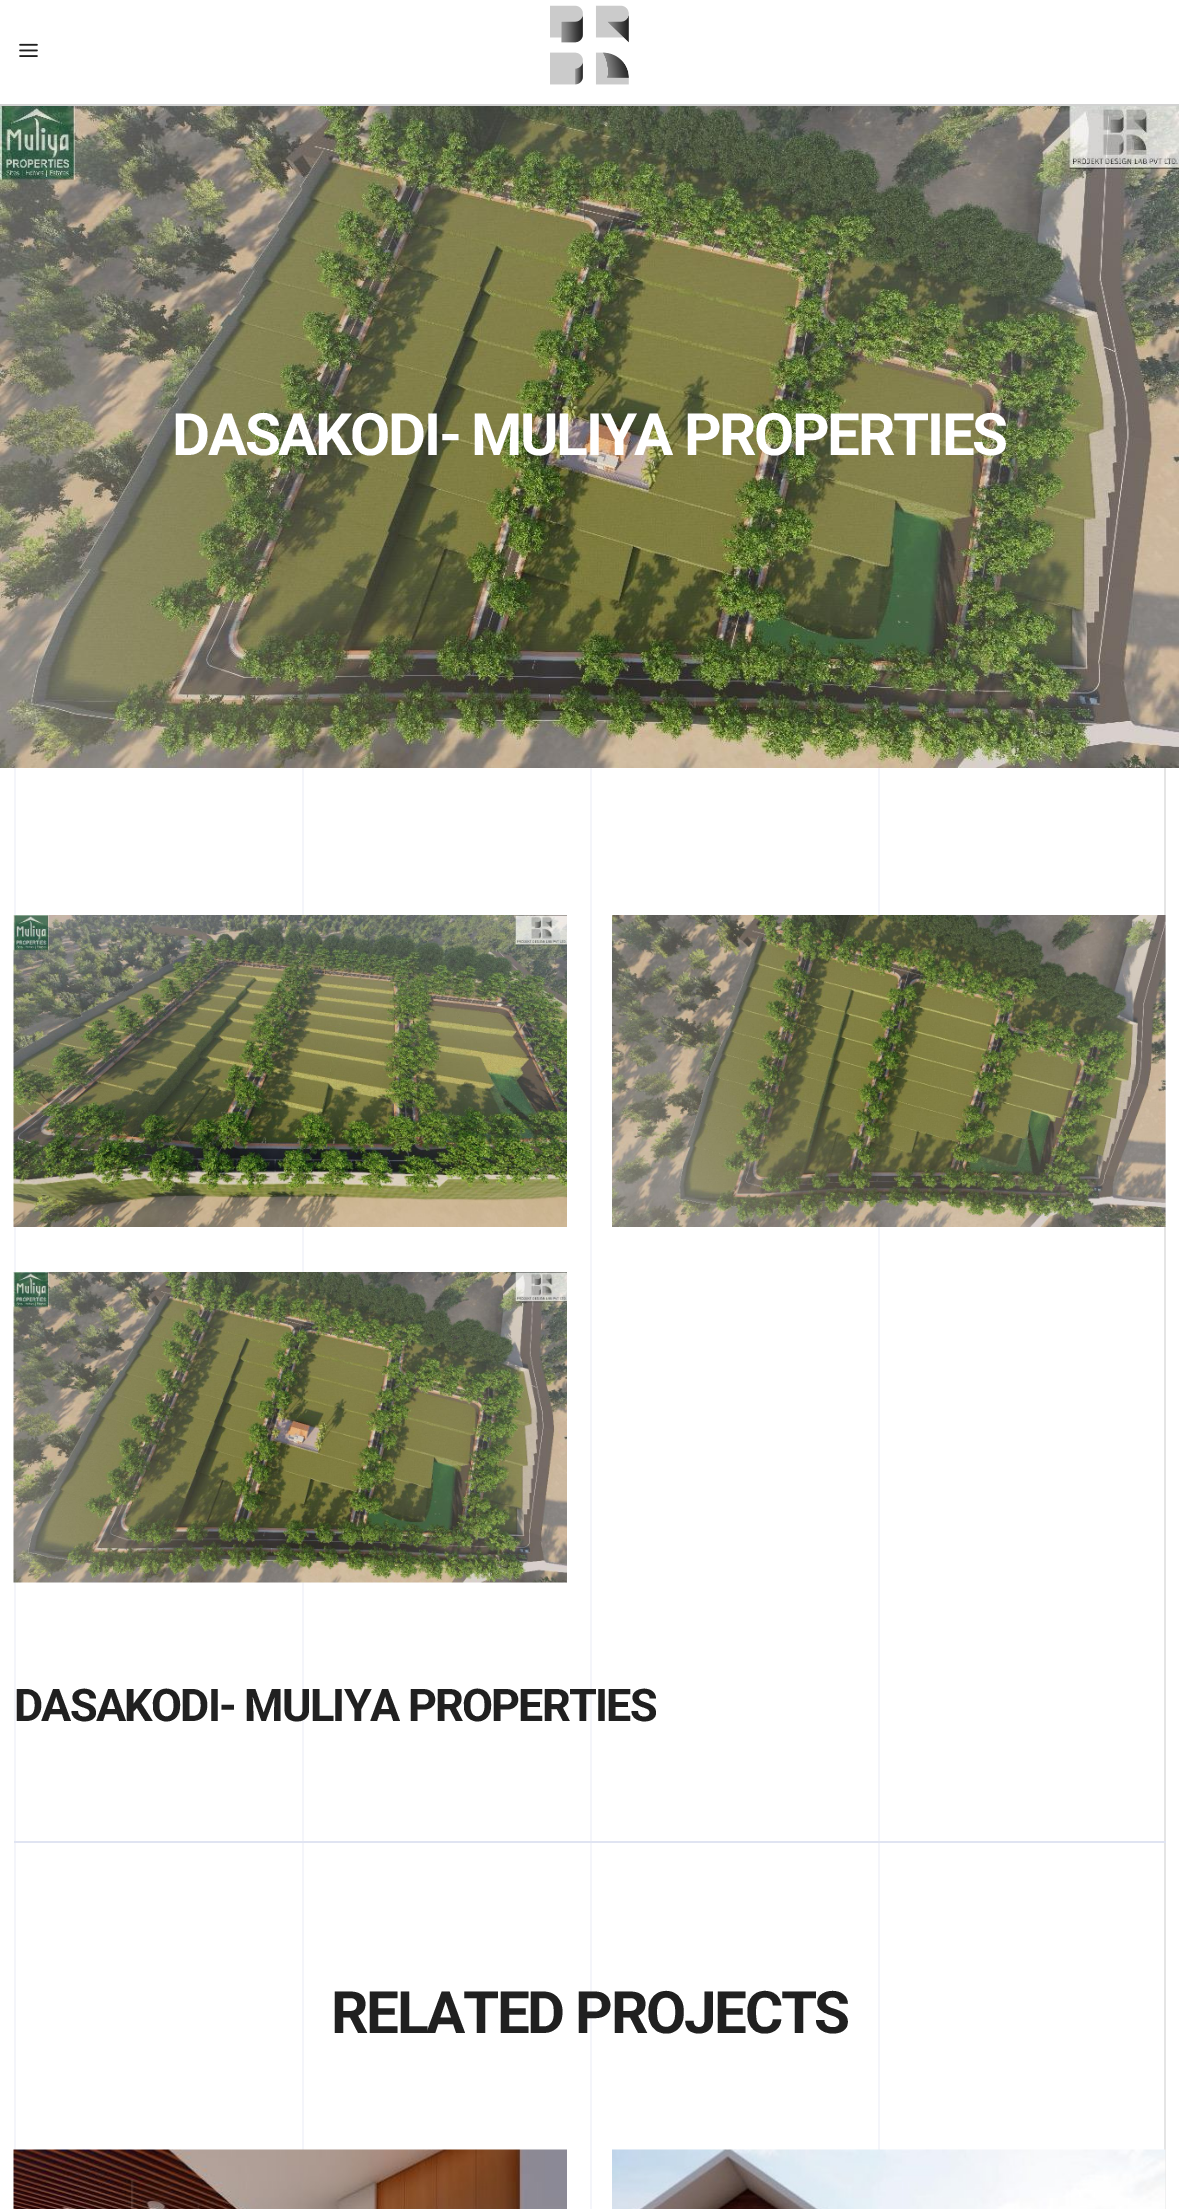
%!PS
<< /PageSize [1179 2209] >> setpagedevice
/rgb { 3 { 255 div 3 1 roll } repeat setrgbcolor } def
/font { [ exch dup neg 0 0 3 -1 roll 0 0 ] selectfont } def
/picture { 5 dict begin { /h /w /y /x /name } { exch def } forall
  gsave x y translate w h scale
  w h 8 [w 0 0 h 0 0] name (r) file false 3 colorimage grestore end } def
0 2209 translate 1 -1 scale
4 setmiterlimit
255 255 255 rgb
0 0 1179 2209 rectfill
210 210 210 rgb
0 104 1179 2 rectfill
(img/1.rgb) 19 43 19 14 picture
(img/2.rgb) 550 5 79 80 picture
(img/3.rgb) 0 106 1179 662 picture
[
  [14 768 2 1382 244 245 250]
  [302 768 2 1382 244 245 250]
  [590 768 2 1441 244 245 250]
  [1164 768 2 1441 229 229 229]
  [878 768 2 1382 244 245 250]
] { aload pop rgb rectfill } forall
(img/4.rgb) 13 915 554 312 picture
(img/5.rgb) 612 915 554 312 picture
(img/6.rgb) 13 1272 554 311 picture
224 228 242 rgb
14 1841 1152 2 rectfill
(img/7.rgb) 13 2149 554 60 picture
(img/8.rgb) 612 2149 554 60 picture
/Roboto-Bold 58.5 font
255 255 255 rgb
172 455 moveto -2.35 0 (DASAKODI- MULIYA PROPERTIES) ashow
/Roboto-Bold 45 font
32 32 32 rgb
14 1721 moveto -1.8 0 (DASAKODI- MULIYA PROPERTIES) ashow
/Roboto-Bold 58.5 font
331 2033 moveto -2.35 0 (RELATED PROJECTS) ashow
showpage
